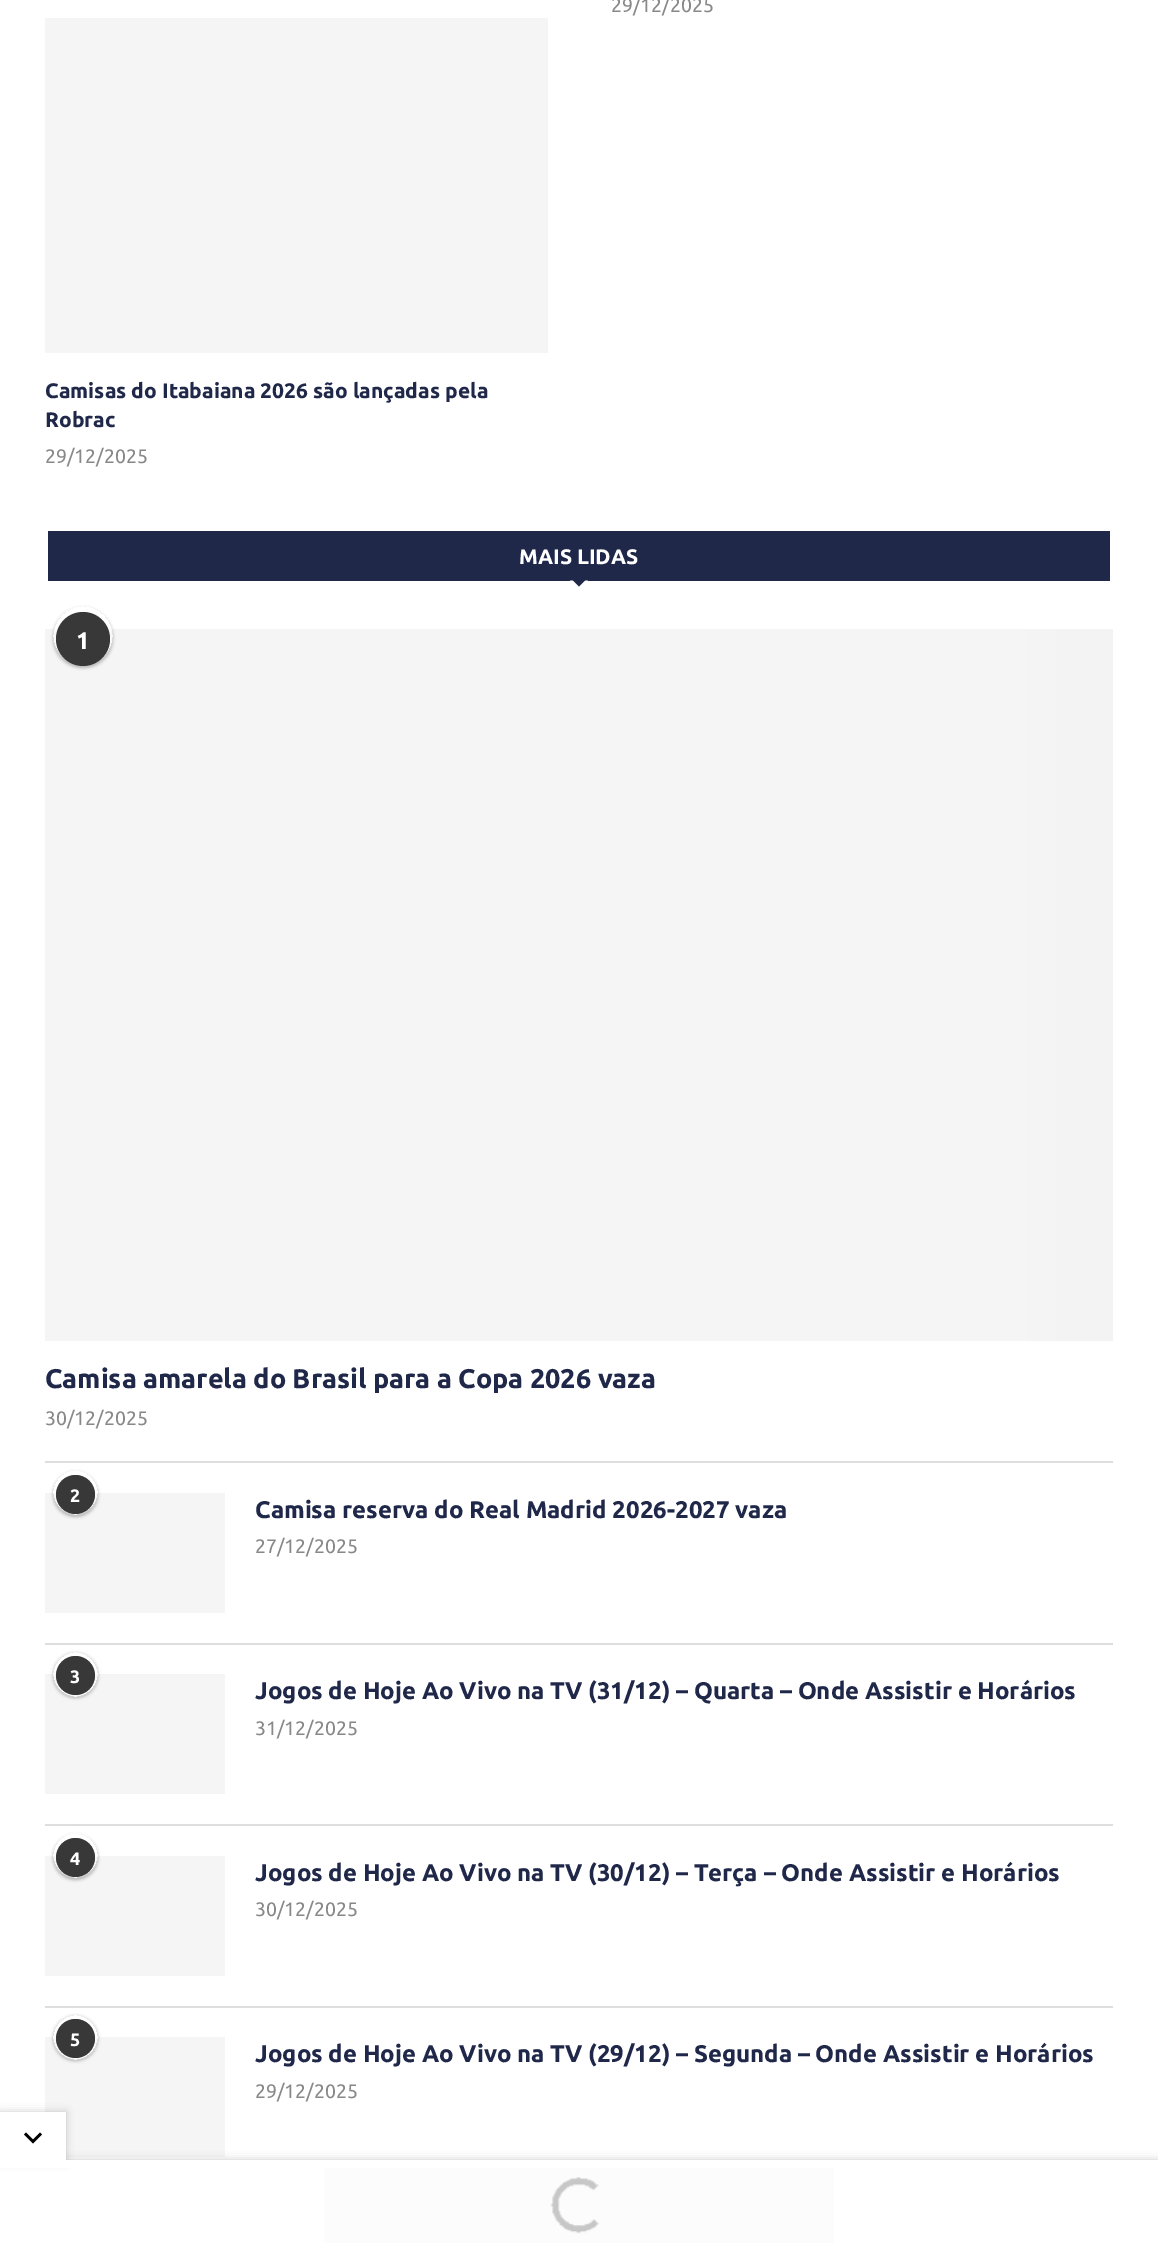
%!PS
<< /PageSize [1158 2249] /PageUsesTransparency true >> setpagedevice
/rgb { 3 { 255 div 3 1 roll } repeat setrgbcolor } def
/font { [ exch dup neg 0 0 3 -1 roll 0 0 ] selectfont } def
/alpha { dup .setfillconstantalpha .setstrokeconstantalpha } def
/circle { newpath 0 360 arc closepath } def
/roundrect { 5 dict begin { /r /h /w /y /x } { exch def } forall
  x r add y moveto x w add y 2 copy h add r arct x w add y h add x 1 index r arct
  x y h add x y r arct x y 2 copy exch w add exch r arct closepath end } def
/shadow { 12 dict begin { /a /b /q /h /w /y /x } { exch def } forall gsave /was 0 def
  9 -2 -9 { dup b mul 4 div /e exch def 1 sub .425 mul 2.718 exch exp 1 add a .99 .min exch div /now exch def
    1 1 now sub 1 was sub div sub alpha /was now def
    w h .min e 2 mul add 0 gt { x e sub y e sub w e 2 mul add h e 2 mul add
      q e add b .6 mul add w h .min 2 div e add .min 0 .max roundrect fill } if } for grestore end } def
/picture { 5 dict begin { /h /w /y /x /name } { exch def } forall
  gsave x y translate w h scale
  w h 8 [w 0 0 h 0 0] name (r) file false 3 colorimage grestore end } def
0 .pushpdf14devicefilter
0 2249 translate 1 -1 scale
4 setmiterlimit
255 255 255 rgb
0 0 1158 2249 rectfill
245 245 245 rgb
45 18 503 335 rectfill
32 40 74 rgb
48 531 1062 50 rectfill
255 255 255 rgb
570 580.5 moveto 588 580.5 lineto 579 589.5 lineto closepath fill
32 40 74 rgb
570 577.5 moveto 588 577.5 lineto 579 586.5 lineto closepath fill
222 222 222 rgb
45 1461 1068 2 rectfill
245 245 245 rgb
45 629 150 712 rectfill
gsave
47 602 moveto 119 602 lineto 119 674 lineto 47 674 lineto closepath 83 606 moveto 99.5 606 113 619.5 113 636 curveto 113 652.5 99.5 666 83 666 curveto 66.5 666 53 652.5 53 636 curveto 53 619.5 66.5 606 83 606 curveto closepath eoclip newpath
0 0 0 rgb
53 608 60 60 30 1.5 0.25 shadow
grestore
0.3 alpha
255 255 255 rgb
83 636 30 circle fill
1 alpha
56 56 56 rgb
83 639 27 circle fill
gsave 195 629 moveto 1113 629 lineto 1113 1341 lineto 195 1341 lineto closepath clip newpath
<< /ShadingType 2 /ColorSpace /DeviceRGB /Coords [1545 1904 195 1904] /Extend [true true] /Function << /FunctionType 3 /Domain [0 1] /Functions [<< /FunctionType 2 /Domain [0 1] /C0 [0.961 0.961 0.961] /C1 [0.937 0.937 0.937] /N 1 >> << /FunctionType 2 /Domain [0 1] /C0 [0.937 0.937 0.937] /C1 [0.961 0.961 0.961] /N 1 >> << /FunctionType 2 /Domain [0 1] /C0 [0.961 0.961 0.961] /C1 [0.961 0.961 0.961] /N 1 >>] /Bounds [0.15 0.4] /Encode [0 1 0 1 0 1] >> >> shfill grestore
222 222 222 rgb
45 1643 1068 2 rectfill
245 245 245 rgb
45 1493 180 120 rectfill
gsave
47 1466 moveto 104 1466 lineto 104 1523 lineto 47 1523 lineto closepath 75.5 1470 moveto 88 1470 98 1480 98 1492.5 curveto 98 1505 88 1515 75.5 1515 curveto 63 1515 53 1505 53 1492.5 curveto 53 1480 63 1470 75.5 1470 curveto closepath eoclip newpath
0 0 0 rgb
53 1472 45 45 22.5 1.5 0.25 shadow
grestore
0.3 alpha
255 255 255 rgb
75.5 1492.5 22.5 circle fill
1 alpha
56 56 56 rgb
75.5 1494.5 19.5 circle fill
222 222 222 rgb
45 1824 1068 2 rectfill
245 245 245 rgb
45 1674 180 120 rectfill
gsave
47 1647 moveto 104 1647 lineto 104 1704 lineto 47 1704 lineto closepath 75.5 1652 moveto 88 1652 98 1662 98 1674.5 curveto 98 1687 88 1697 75.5 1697 curveto 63 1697 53 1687 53 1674.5 curveto 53 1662 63 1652 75.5 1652 curveto closepath eoclip newpath
0 0 0 rgb
53 1653 45 45 22.5 1.5 0.25 shadow
grestore
0.3 alpha
255 255 255 rgb
75.5 1674.5 22.5 circle fill
1 alpha
56 56 56 rgb
75.5 1675.5 19.5 circle fill
222 222 222 rgb
45 2006 1068 2 rectfill
245 245 245 rgb
45 1856 180 120 rectfill
gsave
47 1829 moveto 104 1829 lineto 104 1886 lineto 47 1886 lineto closepath 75.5 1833 moveto 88 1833 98 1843 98 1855.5 curveto 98 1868 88 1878 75.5 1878 curveto 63 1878 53 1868 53 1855.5 curveto 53 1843 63 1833 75.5 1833 curveto closepath eoclip newpath
0 0 0 rgb
53 1835 45 45 22.5 1.5 0.25 shadow
grestore
0.3 alpha
255 255 255 rgb
75.5 1855.5 22.5 circle fill
1 alpha
56 56 56 rgb
75.5 1857.5 19.5 circle fill
245 245 245 rgb
45 2037 180 120 rectfill
gsave
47 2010 moveto 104 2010 lineto 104 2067 lineto 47 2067 lineto closepath 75.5 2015 moveto 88 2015 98 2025 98 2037.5 curveto 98 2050 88 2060 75.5 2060 curveto 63 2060 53 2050 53 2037.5 curveto 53 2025 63 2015 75.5 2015 curveto closepath eoclip newpath
0 0 0 rgb
53 2016 45 45 22.5 1.5 0.25 shadow
grestore
0.3 alpha
255 255 255 rgb
75.5 2037.5 22.5 circle fill
1 alpha
56 56 56 rgb
75.5 2038.5 19.5 circle fill
0 0 0 rgb
0 2160 1158 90 0 4 0.2 shadow
255 255 255 rgb
0 2168 1158 81 rectfill
0 0 0 rgb
0 2112 66 51 0 4 0.2 shadow
255 255 255 rgb
0 2112 66 48 rectfill
0 0 0 rgb
26 2132.5 moveto 33 2139.5 lineto 40 2132.5 lineto 42 2134.5 lineto 33 2143.5 lineto 24 2134.5 lineto closepath fill
255 255 255 rgb
0 2160 1158 8 rectfill
252 252 252 rgb
324 2168 510 75 rectfill
(img/1.rgb) 550 2177 49 57 picture
/Ubuntu-Regular 19.5 font
136 136 136 rgb
611 12 moveto (29/12/2025) show
/Ubuntu-Bold 21 font
32 40 74 rgb
45 398 moveto (Camisas do Itabaiana 2026 são lançadas pela) show
45 427 moveto (Robrac) show
/Ubuntu-Regular 19.5 font
136 136 136 rgb
45 463 moveto (29/12/2025) show
/Ubuntu-Bold 21 font
255 255 255 rgb
519 564 moveto (MAIS LIDAS) show
/Ubuntu-Bold 24 font
76 649 moveto (1) show
/Ubuntu-Bold 27 font
32 40 74 rgb
45 1388 moveto (Camisa amarela do Brasil para a Copa 2026 vaza) show
/Ubuntu-Regular 19.5 font
136 136 136 rgb
45 1425 moveto (30/12/2025) show
/Ubuntu-Bold 18 font
255 255 255 rgb
70 1502 moveto (2) show
/Ubuntu-Bold 24 font
32 40 74 rgb
255 1518 moveto (Camisa reserva do Real Madrid 2026-2027 vaza) show
/Ubuntu-Regular 19.5 font
136 136 136 rgb
255 1553 moveto (27/12/2025) show
/Ubuntu-Bold 18 font
255 255 255 rgb
70 1683 moveto (3) show
/Ubuntu-Bold 24 font
32 40 74 rgb
255 1699 moveto (Jogos de Hoje Ao Vivo na TV \(31/12\) – Quarta – Onde Assistir e Horários) show
/Ubuntu-Regular 19.5 font
136 136 136 rgb
255 1735 moveto (31/12/2025) show
/Ubuntu-Bold 18 font
255 255 255 rgb
70 1865 moveto (4) show
/Ubuntu-Bold 24 font
32 40 74 rgb
255 1881 moveto (Jogos de Hoje Ao Vivo na TV \(30/12\) – Terça – Onde Assistir e Horários) show
/Ubuntu-Regular 19.5 font
136 136 136 rgb
255 1916 moveto (30/12/2025) show
/Ubuntu-Bold 18 font
255 255 255 rgb
70 2046 moveto (5) show
/Ubuntu-Bold 24 font
32 40 74 rgb
255 2062 moveto (Jogos de Hoje Ao Vivo na TV \(29/12\) – Segunda – Onde Assistir e Horários) show
/Ubuntu-Regular 19.5 font
136 136 136 rgb
255 2098 moveto (29/12/2025) show
.poppdf14devicefilter showpage
